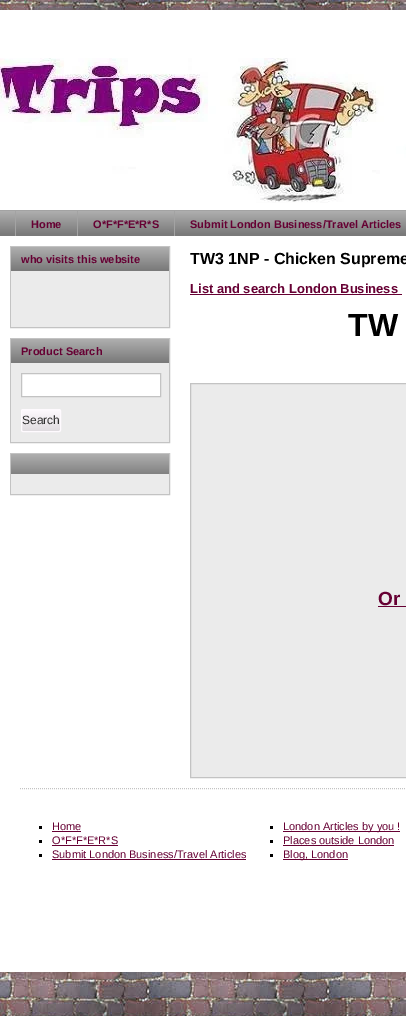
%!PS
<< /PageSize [406 1016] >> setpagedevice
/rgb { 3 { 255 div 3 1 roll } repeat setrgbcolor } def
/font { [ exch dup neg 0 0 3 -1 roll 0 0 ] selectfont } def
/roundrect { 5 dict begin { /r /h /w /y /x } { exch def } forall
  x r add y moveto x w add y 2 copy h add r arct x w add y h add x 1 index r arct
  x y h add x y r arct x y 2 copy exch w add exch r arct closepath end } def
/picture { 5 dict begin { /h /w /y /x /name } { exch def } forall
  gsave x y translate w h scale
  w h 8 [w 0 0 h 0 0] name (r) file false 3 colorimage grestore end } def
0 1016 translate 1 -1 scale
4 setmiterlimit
255 255 255 rgb
0 0 406 1016 rectfill
(img/1.rgb) 0 0 406 1016 picture
0 10 406 200 rectfill
(img/2.rgb) 0 58 406 145 picture
0 236 406 736 rectfill
153 153 153 rgb
0 211 406 25 rectfill
(img/3.rgb) 0 211 406 25 picture
[
  [0 210 406 1 163 163 163]
  [77 211 1 25 163 163 163]
  [15 211 1 25 163 163 163]
  [174 211 1 25 163 163 163]
] { aload pop rgb rectfill } forall
195 195 195 rgb
10.5 246.5 159 81 rectstroke
153 153 153 rgb
11 247 158 24 rectfill
(img/4.rgb) 11 247 158 24 picture
235 235 235 rgb
11 271 158 56 rectfill
195 195 195 rgb
10.5 338.5 159 104 rectstroke
153 153 153 rgb
11 339 158 24 rectfill
(img/4.rgb) 11 339 158 24 picture
235 235 235 rgb
11 363 158 79 rectfill
255 255 255 rgb
21.5 373.5 moveto 160.5 373.5 lineto 160.5 396.5 lineto 21.5 396.5 lineto closepath gsave fill grestore
195 195 195 rgb
stroke
gsave
21 409 40 23 2 roundrect clip newpath
gsave 21 410 moveto 61 410 lineto 61 431 lineto 21 431 lineto closepath clip newpath
<< /ShadingType 2 /ColorSpace /DeviceRGB /Coords [41 410 41 431] /Extend [true true] /Function << /FunctionType 2 /Domain [0 1] /C0 [0.996 0.98 0.996] /C1 [0.878 0.863 0.878] /N 1 >> >> shfill grestore
grestore
254 250 254 rgb
21.5 409.5 39 22 1.5 roundrect stroke
195 195 195 rgb
10.5 453.5 159 41 rectstroke
153 153 153 rgb
11 454 158 20 rectfill
(img/5.rgb) 11 454 158 20 picture
235 235 235 rgb
11 474 158 20 rectfill
102 0 51 rgb
190 294 212 1 rectfill
235 235 235 rgb
190.5 383.5 moveto 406.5 383.5 lineto 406.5 777.5 lineto 190.5 777.5 lineto closepath gsave fill grestore
195 195 195 rgb
stroke
102 0 51 rgb
378 606 28 1 rectfill
195 195 195 rgb
[1 1] 0 setdash
20 788.5 moveto 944 788.5 lineto stroke
[
  [39 826 3 3 0 0 0]
  [52 831 29 1 102 0 51]
  [39 840 3 3 0 0 0]
  [52 845 66 1 102 0 51]
  [39 854 3 3 0 0 0]
  [52 859 194 1 102 0 51]
  [270 826 3 3 0 0 0]
  [283 831 117 1 102 0 51]
  [270 840 3 3 0 0 0]
  [283 845 111 1 102 0 51]
  [270 854 3 3 0 0 0]
  [283 859 65 1 102 0 51]
] { aload pop rgb rectfill } forall
/LiberationSans-Bold 11 font
[
  [(Home) 31 228]
  [(O*F*F*E*R*S) 93 228]
  [(Submit London Business/Travel Articles) 190 228]
  [(who visits this website) 21 263]
  [(Product Search) 21 355]
] { aload pop moveto show } forall
/LiberationSans-Regular 12 font
47 47 47 rgb
22 424 moveto (Search) show
/LiberationSans-Bold 16 font
0 0 0 rgb
190 264 moveto (TW3 1NP - Chicken Supreme) show
/LiberationSans-Bold 13 font
102 0 51 rgb
190 293 moveto (List and search London Business) show
/LiberationSans-Bold 32 font
0 0 0 rgb
348 336 moveto (TW) show
/LiberationSans-Bold 19 font
102 0 51 rgb
378 605 moveto (Or) show
/LiberationSans-Regular 11 font
[
  [(Home) 52 830]
  [(O*F*F*E*R*S) 52 844]
  [(Submit London Business/Travel Articles) 52 858]
  [(London Articles by you !) 283 830]
  [(Places outside London) 283 844]
  [(Blog, London) 283 858]
] { aload pop moveto show } forall
showpage
